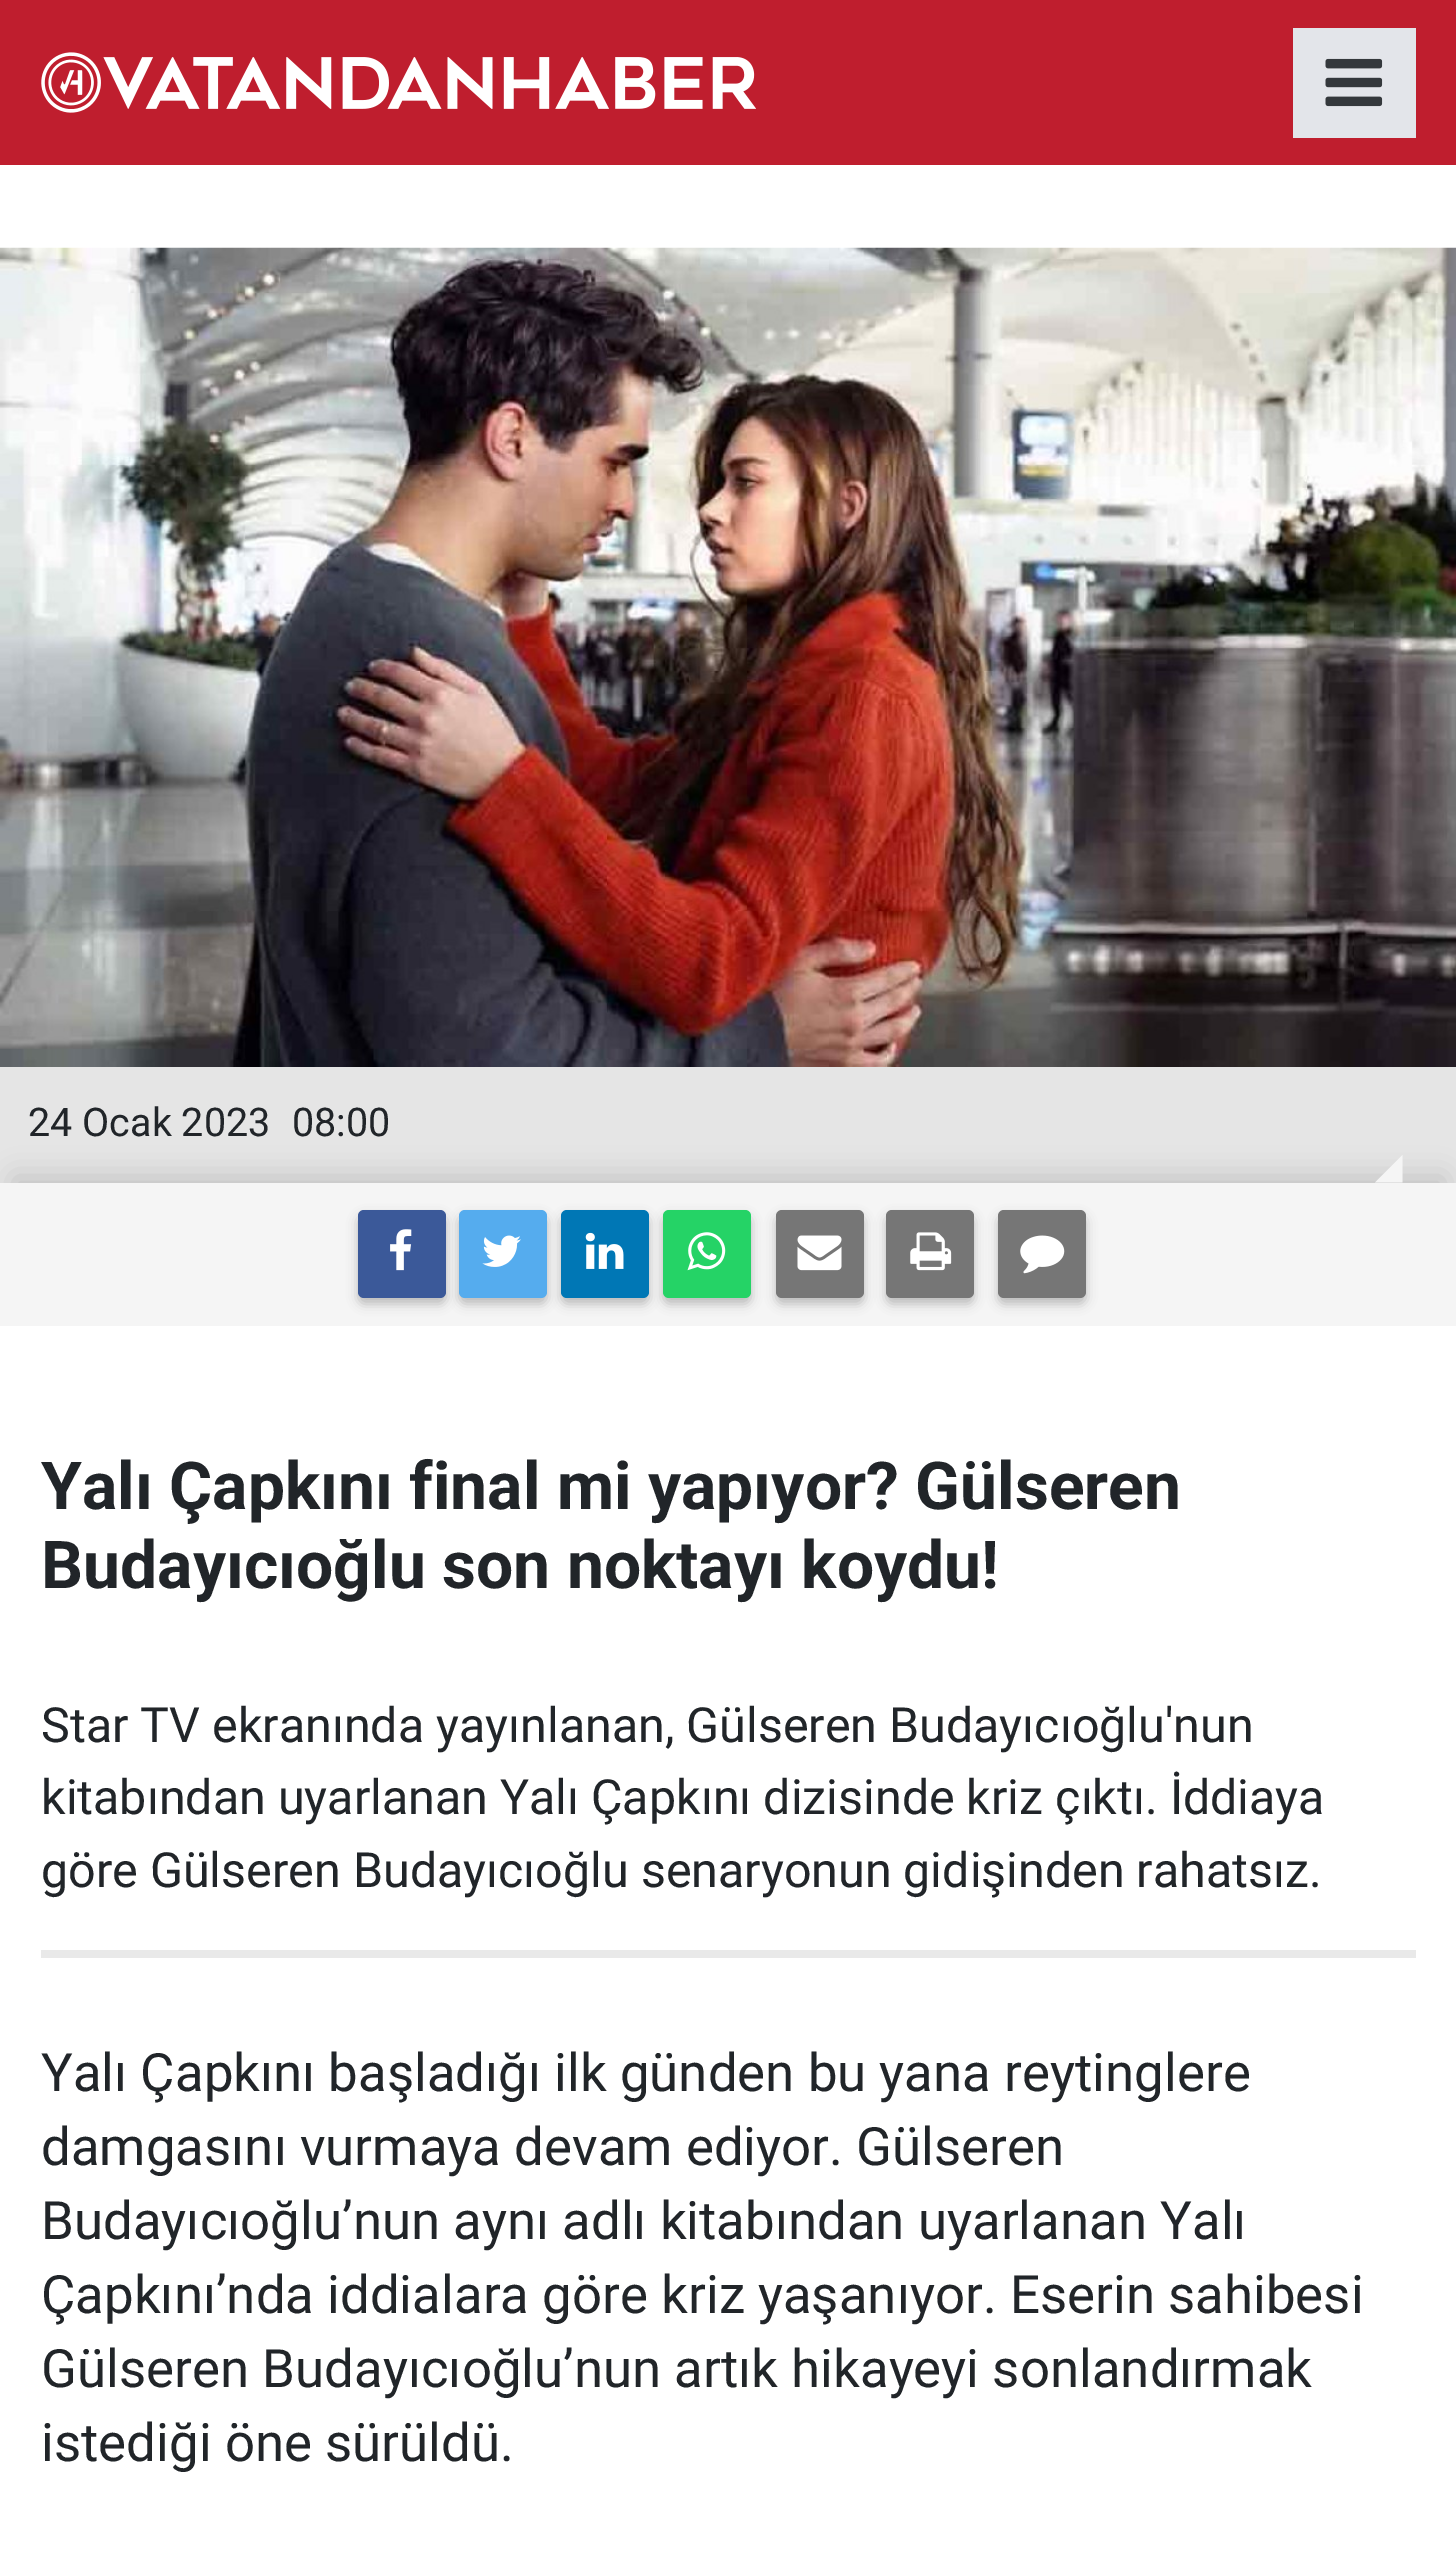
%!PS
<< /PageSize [1456 2574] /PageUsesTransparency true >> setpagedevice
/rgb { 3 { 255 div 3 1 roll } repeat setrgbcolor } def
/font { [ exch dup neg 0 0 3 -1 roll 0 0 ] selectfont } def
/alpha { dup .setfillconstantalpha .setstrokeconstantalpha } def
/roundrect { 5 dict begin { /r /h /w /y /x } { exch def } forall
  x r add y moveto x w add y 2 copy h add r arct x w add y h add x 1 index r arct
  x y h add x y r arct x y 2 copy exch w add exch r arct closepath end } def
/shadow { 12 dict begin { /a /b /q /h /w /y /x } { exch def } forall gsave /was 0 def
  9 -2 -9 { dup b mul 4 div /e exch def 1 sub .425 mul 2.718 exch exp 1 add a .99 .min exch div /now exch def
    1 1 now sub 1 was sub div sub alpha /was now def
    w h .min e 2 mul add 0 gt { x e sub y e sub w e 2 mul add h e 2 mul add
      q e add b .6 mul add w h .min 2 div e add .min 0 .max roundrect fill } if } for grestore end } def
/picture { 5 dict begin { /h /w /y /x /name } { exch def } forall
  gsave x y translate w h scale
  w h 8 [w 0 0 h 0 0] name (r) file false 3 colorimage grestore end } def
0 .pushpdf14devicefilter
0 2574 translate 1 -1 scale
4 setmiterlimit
255 255 255 rgb
0 0 1456 2574 rectfill
191 30 46 rgb
0 0 1456 165 rectfill
(img/1.rgb) 41 52 715 61 picture
227 229 234 rgb
1293 28 123 110 rectfill
(img/2.rgb) 1325 58 58 49 picture
(img/3.rgb) 0 247 1456 820 picture
229 229 229 rgb
0 1067 1456 116 rectfill
0 0 0 rgb
14 1177 1430 116 0 14 0.15 shadow
245 245 245 rgb
0 1183 1456 143 rectfill
1402.5 1182.5 moveto 1375 1182.5 lineto 1402.5 1155 lineto closepath fill
50 50 50 rgb
358 1216 88 88 6 5.5 0.3 shadow
59 89 153 rgb
358 1210 88 88 6 roundrect fill
(img/4.rgb) 390 1229 22 42 picture
50 50 50 rgb
459 1216 88 88 6 5.5 0.3 shadow
85 172 238 rgb
459 1210 88 88 6 roundrect fill
(img/5.rgb) 482 1235 39 32 picture
50 50 50 rgb
561 1216 88 88 6 5.5 0.3 shadow
0 119 181 rgb
561 1210 88 88 6 roundrect fill
(img/6.rgb) 585 1232 39 37 picture
50 50 50 rgb
663 1216 88 88 6 5.5 0.3 shadow
37 211 102 rgb
663 1210 88 88 6 roundrect fill
(img/7.rgb) 687 1232 39 39 picture
50 50 50 rgb
776 1216 88 88 6 5.5 0.3 shadow
118 118 118 rgb
776 1210 88 88 6 roundrect fill
(img/8.rgb) 797 1235 45 36 picture
50 50 50 rgb
886 1216 88 88 6 5.5 0.3 shadow
118 118 118 rgb
886 1210 88 88 6 roundrect fill
(img/9.rgb) 910 1232 42 39 picture
50 50 50 rgb
998 1216 88 88 6 5.5 0.3 shadow
118 118 118 rgb
998 1210 88 88 6 roundrect fill
(img/10.rgb) 1020 1235 45 39 picture
233 233 233 rgb
41 1950 1375 8 rectfill
/Roboto-Regular 39.5 font
33 37 41 rgb
28 1136 moveto (24 Ocak 2023) show
292 1136 moveto (08:00) show
/Roboto-Bold 66 font
41 1509 moveto (Yalı Çapkını final mi yapıyor? Gülseren) show
41 1588 moveto (Budayıcıoğlu son noktayı koydu!) show
/Roboto-Regular 48.4 font
[
  [(Star TV ekranında yayınlanan, Gülseren Budayıcıoğlu'nun) 41 1742]
  [(kitabından uyarlanan Yalı Çapkını dizisinde kriz çıktı. İddiaya) 41 1814]
  [(göre Gülseren Budayıcıoğlu senaryonun gidişinden rahatsız.) 41 1887]
] { aload pop moveto show } forall
/Roboto-Regular 52.8 font
[
  [(Yalı Çapkını başladığı ilk günden bu yana reytinglere) 41 2091]
  [(damgasını vurmaya devam ediyor. Gülseren) 41 2165]
  [(Budayıcıoğlu’nun aynı adlı kitabından uyarlanan Yalı) 41 2239]
  [(Çapkını’nda iddialara göre kriz yaşanıyor. Eserin sahibesi) 41 2313]
  [(Gülseren Budayıcıoğlu’nun artık hikayeyi sonlandırmak) 41 2387]
  [(istediği öne sürüldü.) 41 2461]
] { aload pop moveto show } forall
.poppdf14devicefilter showpage
